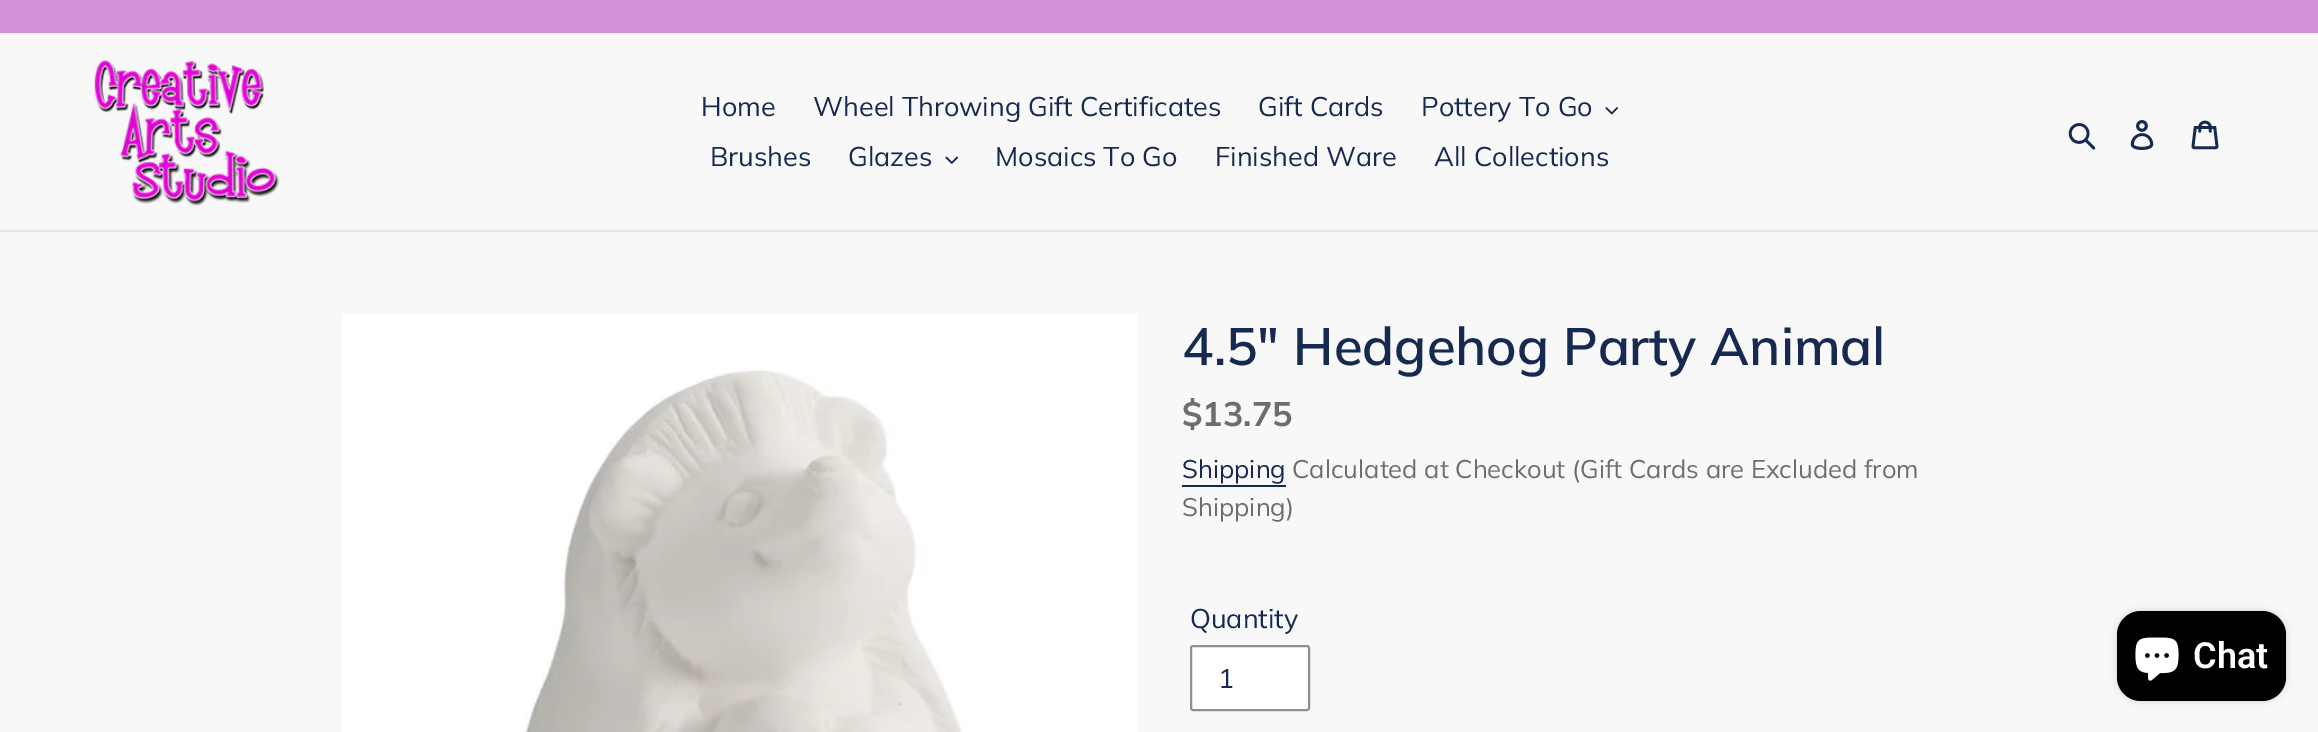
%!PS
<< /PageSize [2318 732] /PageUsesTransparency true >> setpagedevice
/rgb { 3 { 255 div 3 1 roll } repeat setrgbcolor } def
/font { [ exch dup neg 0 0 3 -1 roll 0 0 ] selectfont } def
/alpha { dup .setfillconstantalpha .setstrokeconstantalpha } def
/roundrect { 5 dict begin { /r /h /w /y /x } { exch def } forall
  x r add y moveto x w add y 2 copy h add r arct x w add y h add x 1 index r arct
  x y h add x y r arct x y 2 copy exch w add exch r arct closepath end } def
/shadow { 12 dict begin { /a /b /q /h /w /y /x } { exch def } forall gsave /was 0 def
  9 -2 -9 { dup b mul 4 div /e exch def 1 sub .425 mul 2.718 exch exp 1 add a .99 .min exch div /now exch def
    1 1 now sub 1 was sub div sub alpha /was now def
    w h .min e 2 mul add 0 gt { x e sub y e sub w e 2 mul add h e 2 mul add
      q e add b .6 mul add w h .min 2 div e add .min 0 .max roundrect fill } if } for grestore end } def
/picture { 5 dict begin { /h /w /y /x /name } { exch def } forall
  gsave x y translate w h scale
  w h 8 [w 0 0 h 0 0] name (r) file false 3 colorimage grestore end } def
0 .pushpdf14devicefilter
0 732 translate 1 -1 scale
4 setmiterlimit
248 248 248 rgb
0 0 2318 732 rectfill
209 144 216 rgb
0 0 2318 33 rectfill
228 228 228 rgb
0 230 2318 2 rectfill
(img/1.rgb) 93 59 187 147 picture
(img/2.rgb) 1605 107 13 8 picture
(img/3.rgb) 945 156 13 8 picture
(img/4.rgb) 2068 123 28 27 picture
(img/5.rgb) 2130 120 24 30 picture
(img/6.rgb) 2191 120 28 30 picture
(img/7.rgb) 342 314 795 418 picture
22 41 80 rgb
1182 485 104 2 rectfill
255 255 255 rgb
1191 646 118 64 2 roundrect gsave fill grestore
144 144 144 rgb
2 setlinewidth
stroke
0 0 0 rgb
2117 611 169 90 24 4 0.15 shadow
2117 611 169 90 24 roundrect fill
(img/8.rgb) 2135 637 44 44 picture
/Muli-Regular 27 font
22 41 80 rgb
[
  [(Home) 701 116]
  [(Wheel Throwing Gift Certificates) 813 116]
  [(Gift Cards) 1258 116]
  [(Pottery To Go) 1421 116]
  [(Brushes) 710 166]
  [(Glazes) 848 166]
  [(Mosaics To Go) 995 166]
  [(Finished Ware) 1215 166]
  [(All Collections) 1434 166]
] { aload pop moveto show } forall
/Muli-SemiBold 52.5 font
1182 365 moveto (4.5" Hedgehog Party Animal) show
/Muli-Bold 34 font
109 109 109 rgb
1182 426 moveto ($13.75) show
/Muli-Regular 25.5 font
22 41 80 rgb
1182 478 moveto (Shipping) show
109 109 109 rgb
1292 478 moveto (Calculated at Checkout \(Gift Cards are Excluded from) show
1182 516 moveto (Shipping\)) show
/Muli-Regular 27 font
22 41 80 rgb
1190 628 moveto (Quantity) show
1218 688 moveto (1) show
/Roboto-SemiBold 36 font
255 255 255 rgb
2193 668 moveto (Chat) show
.poppdf14devicefilter showpage
